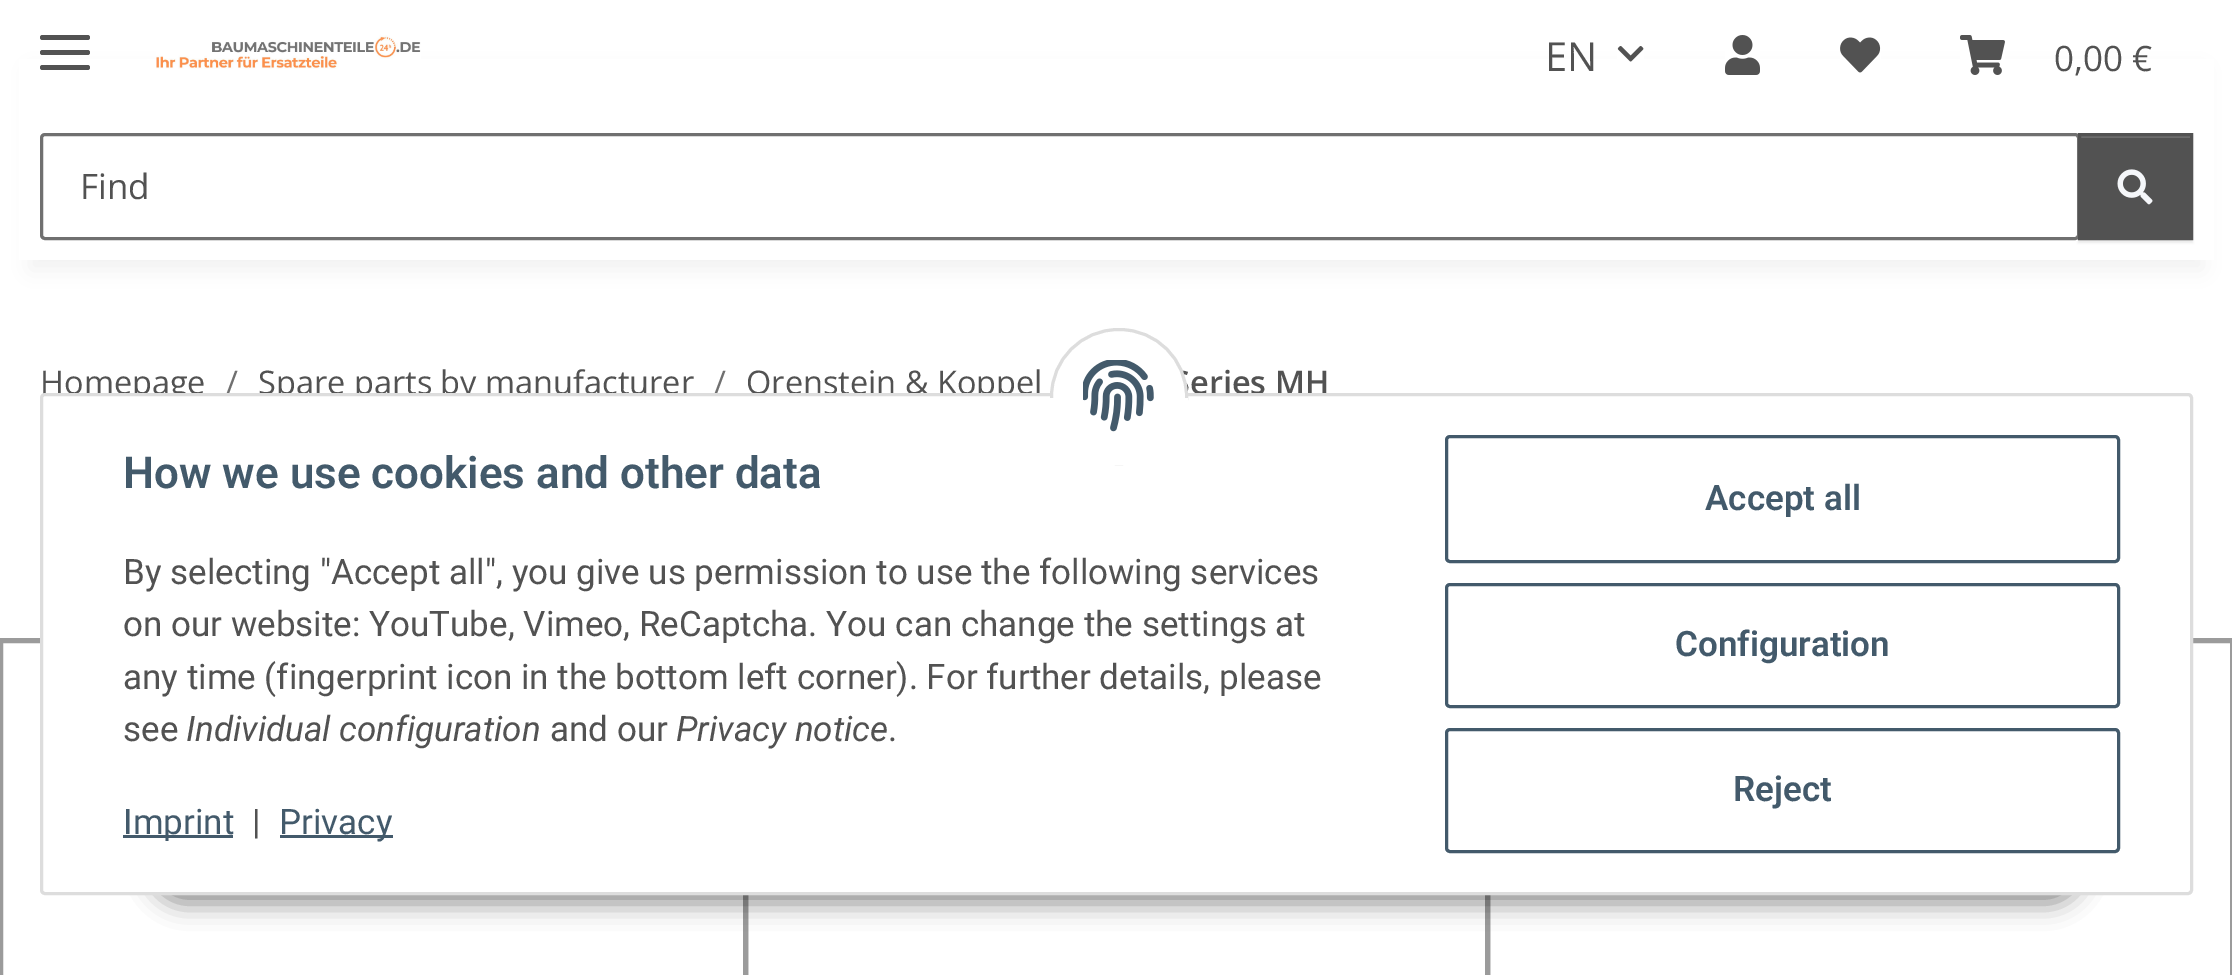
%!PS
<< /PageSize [2232 975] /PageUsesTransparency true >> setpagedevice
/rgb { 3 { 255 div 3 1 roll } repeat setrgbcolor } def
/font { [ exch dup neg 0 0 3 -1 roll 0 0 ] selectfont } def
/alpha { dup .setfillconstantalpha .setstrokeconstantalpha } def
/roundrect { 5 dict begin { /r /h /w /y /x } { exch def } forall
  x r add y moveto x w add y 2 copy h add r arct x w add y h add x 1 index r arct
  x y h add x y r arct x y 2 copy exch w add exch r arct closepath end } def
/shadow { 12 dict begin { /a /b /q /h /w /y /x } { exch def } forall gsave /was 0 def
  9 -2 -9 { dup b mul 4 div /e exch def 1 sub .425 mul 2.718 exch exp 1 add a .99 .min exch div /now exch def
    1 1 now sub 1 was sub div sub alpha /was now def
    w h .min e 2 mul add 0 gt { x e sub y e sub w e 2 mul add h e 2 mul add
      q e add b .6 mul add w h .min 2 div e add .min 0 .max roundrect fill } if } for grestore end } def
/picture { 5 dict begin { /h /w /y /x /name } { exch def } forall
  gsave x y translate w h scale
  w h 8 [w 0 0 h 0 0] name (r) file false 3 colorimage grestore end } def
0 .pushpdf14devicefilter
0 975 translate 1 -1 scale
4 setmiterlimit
255 255 255 rgb
0 0 2232 975 rectfill
0 0 0 rgb
30 70 2173 200 0 11 0.06 shadow
255 255 255 rgb
19 59 2195 201 rectfill
82 82 82 rgb
40 50 50 5 2.5 roundrect fill
40 35 50 5 2.5 roundrect fill
40 65 50 5 2.5 roundrect fill
(img/1.rgb) 156 35 265 34 picture
(img/2.rgb) 1617 46 27 16 picture
(img/3.rgb) 1725 35 35 40 picture
(img/4.rgb) 1840 37 41 36 picture
(img/5.rgb) 1960 35 45 40 picture
112 112 112 rgb
3 setlinewidth
41.5 134.5 2037 104 3.5 roundrect stroke
0 0 0 rgb
2078 135 115 108 0 1 0.07 shadow
82 82 82 rgb
2081 138 109 99 rectfill
108 108 108 rgb
2080 136 110 2 rectfill
82 82 82 rgb
2079.5 134.5 112 104 rectstroke
(img/6.rgb) 2117 169 36 36 picture
155 155 155 rgb
5 setlinewidth
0.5 640.5 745 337 rectstroke
745.5 640.5 742 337 rectstroke
1487.5 640.5 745 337 rectstroke
0 0 0 rgb
150 823 1933 80 40 12.5 0.45 shadow
/OpenSans-Regular 40 font
82 82 82 rgb
1545 71 moveto (EN) show
/OpenSans-Regular 35 font
2054 71 moveto (0,00 €) show
80 199 moveto (Find) show
/OpenSans-Regular 32.5 font
40 394 moveto (Homepage) show
112 112 112 rgb
226 394 moveto (/) show
82 82 82 rgb
258 394 moveto (Spare parts by manufacturer) show
112 112 112 rgb
714 394 moveto (/) show
82 82 82 rgb
746 394 moveto (Orenstein & Koppel) show
/OpenSans-SemiBold 32.5 font
1172 394 moveto (Series MH) show
255 255 255 rgb
41.5 394.5 2150 499 3.5 roundrect gsave fill grestore
221 221 221 rgb
3 setlinewidth
stroke
255 255 255 rgb
1051.5 329.5 135 134 67 roundrect gsave fill grestore
221 221 221 rgb
stroke
255 255 255 rgb
1050 398 138 67 rectfill
(img/7.rgb) 1083 360 71 72 picture
/Roboto-SemiBold 44 font
67 90 107 rgb
123 488 moveto (How we use cookies and other data) show
/Roboto-Regular 35 font
82 82 82 rgb
[
  [(By selecting "Accept all", you give us permission to use the following services) 123 584]
  [(on our website: YouTube, Vimeo, ReCaptcha. You can change the settings at) 123 636]
  [(any time \(fingerprint icon in the bottom left corner\). For further details, please) 123 689]
  [(see) 123 741]
] { aload pop moveto show } forall
/Roboto-Italic 35 font
186 741 moveto (Individual configuration) show
/Roboto-Regular 35 font
550 741 moveto (and our) show
/Roboto-Italic 35 font
676 741 moveto (Privacy notice) show
/Roboto-Regular 35 font
888 741 moveto (.) show
67 90 107 rgb
123 835 110 3 rectfill
123 834 moveto (Imprint) show
82 82 82 rgb
252 834 moveto (|) show
67 90 107 rgb
280 835 113 3 rectfill
279 834 moveto (Privacy) show
1446.5 436.5 672 125 3.5 roundrect stroke
/Roboto-SemiBold 35 font
1705 510 moveto (Accept all) show
1446.5 584.5 672 122 3.5 roundrect stroke
1675 656 moveto (Configuration) show
1446.5 729.5 672 122 3.5 roundrect stroke
1733 801 moveto (Reject) show
.poppdf14devicefilter showpage
